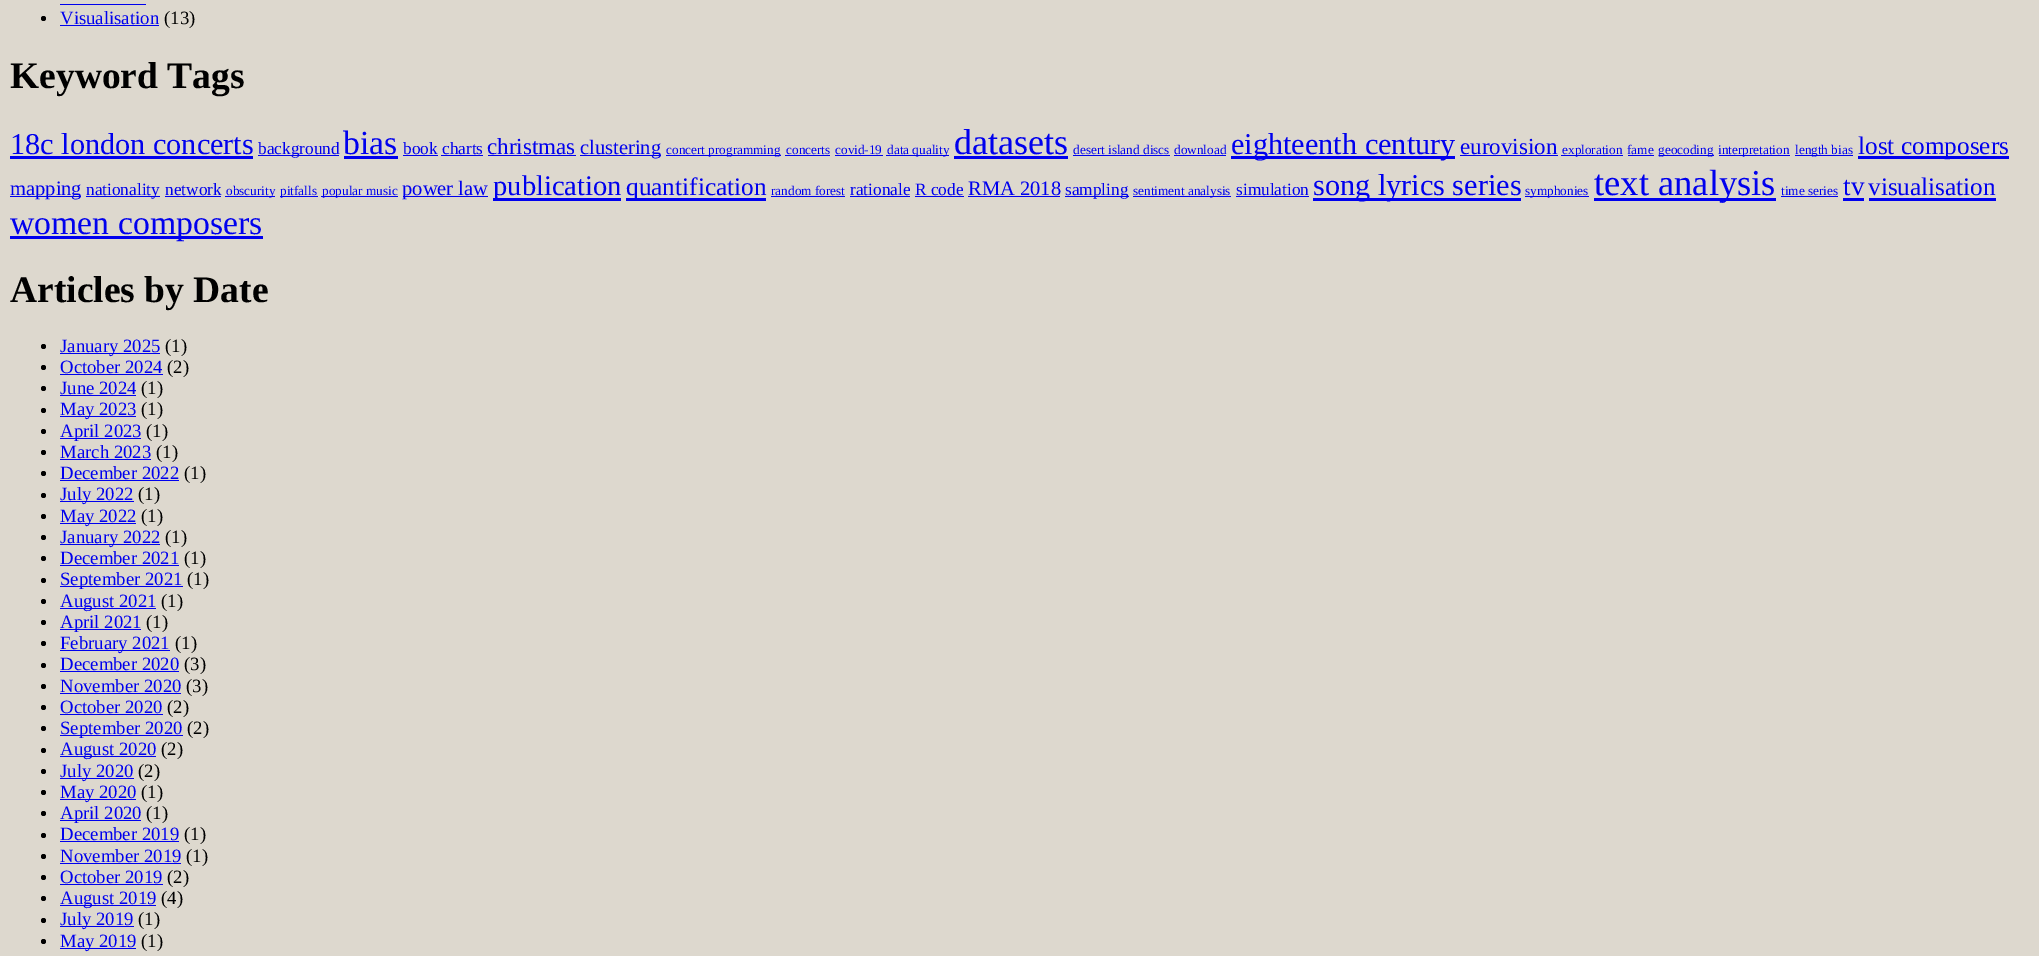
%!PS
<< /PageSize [2039 956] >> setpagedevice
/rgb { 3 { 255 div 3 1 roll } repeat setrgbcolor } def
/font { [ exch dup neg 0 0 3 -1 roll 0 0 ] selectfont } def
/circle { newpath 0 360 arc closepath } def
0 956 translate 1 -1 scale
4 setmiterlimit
221 216 206 rgb
0 0 2039 956 rectfill
0 0 238 rgb
60 4 86 1 rectfill
0 0 0 rgb
43.5 18.5 2.5 circle fill
[
  [60 25 99 1 0 0 238]
  [10 156 243 3 0 0 238]
  [258 155 81 1 0 0 238]
  [344 156 54 3 0 0 238]
  [403 155 35 1 0 0 238]
  [441 155 42 1 0 0 238]
  [488 155 88 1 0 0 238]
  [580 155 81 1 0 0 238]
  [666 155 115 1 0 0 238]
  [785 155 45 1 0 0 238]
  [835 155 48 1 0 0 238]
  [886 155 63 1 0 0 238]
  [954 156 114 3 0 0 238]
  [1073 155 97 1 0 0 238]
  [1174 155 52 1 0 0 238]
  [1231 156 224 3 0 0 238]
  [1460 155 98 1 0 0 238]
  [1561 155 62 1 0 0 238]
  [1628 155 26 1 0 0 238]
  [1659 155 55 1 0 0 238]
  [1719 155 71 1 0 0 238]
  [1795 155 58 1 0 0 238]
  [1858 156 151 3 0 0 238]
  [10 196 71 1 0 0 238]
  [86 196 74 1 0 0 238]
  [165 196 56 1 0 0 238]
  [225 196 50 1 0 0 238]
  [280 196 38 1 0 0 238]
  [321 196 77 1 0 0 238]
  [403 196 85 1 0 0 238]
  [493 198 128 3 0 0 238]
  [626 198 140 3 0 0 238]
  [771 196 74 1 0 0 238]
  [850 196 60 1 0 0 238]
  [915 196 49 1 0 0 238]
  [968 196 92 1 0 0 238]
  [1065 196 64 1 0 0 238]
  [1133 196 98 1 0 0 238]
  [1236 196 73 1 0 0 238]
  [1313 198 208 3 0 0 238]
  [1525 196 64 1 0 0 238]
  [1594 198 182 3 0 0 238]
  [1781 196 57 1 0 0 238]
  [1843 198 21 3 0 0 238]
  [1869 198 127 3 0 0 238]
  [10 236 253 3 0 0 238]
] { aload pop rgb rectfill } forall
0 0 0 rgb
43.5 346.5 2.5 circle fill
0 0 238 rgb
60 353 100 1 rectfill
0 0 0 rgb
43.5 367.5 2.5 circle fill
0 0 238 rgb
60 374 103 1 rectfill
0 0 0 rgb
43.5 388.5 2.5 circle fill
0 0 238 rgb
60 395 76 1 rectfill
0 0 0 rgb
43.5 410.5 2.5 circle fill
0 0 238 rgb
60 416 76 1 rectfill
0 0 0 rgb
43.5 431.5 2.5 circle fill
0 0 238 rgb
60 438 81 1 rectfill
0 0 0 rgb
43.5 452.5 2.5 circle fill
0 0 238 rgb
60 459 91 1 rectfill
0 0 0 rgb
43.5 473.5 2.5 circle fill
0 0 238 rgb
60 480 119 1 rectfill
0 0 0 rgb
43.5 495.5 2.5 circle fill
0 0 238 rgb
60 501 74 1 rectfill
0 0 0 rgb
43.5 516.5 2.5 circle fill
0 0 238 rgb
60 523 76 1 rectfill
0 0 0 rgb
43.5 537.5 2.5 circle fill
0 0 238 rgb
60 544 100 1 rectfill
0 0 0 rgb
43.5 558.5 2.5 circle fill
0 0 238 rgb
60 565 119 1 rectfill
0 0 0 rgb
43.5 580.5 2.5 circle fill
0 0 238 rgb
60 586 123 1 rectfill
0 0 0 rgb
43.5 601.5 2.5 circle fill
0 0 238 rgb
60 608 96 1 rectfill
0 0 0 rgb
43.5 622.5 2.5 circle fill
0 0 238 rgb
60 629 81 1 rectfill
0 0 0 rgb
43.5 643.5 2.5 circle fill
0 0 238 rgb
60 650 110 1 rectfill
0 0 0 rgb
43.5 665.5 2.5 circle fill
0 0 238 rgb
60 671 119 1 rectfill
0 0 0 rgb
43.5 686.5 2.5 circle fill
0 0 238 rgb
60 693 121 1 rectfill
0 0 0 rgb
43.5 707.5 2.5 circle fill
0 0 238 rgb
60 714 103 1 rectfill
0 0 0 rgb
43.5 728.5 2.5 circle fill
0 0 238 rgb
60 735 123 1 rectfill
0 0 0 rgb
43.5 750.5 2.5 circle fill
0 0 238 rgb
60 756 96 1 rectfill
0 0 0 rgb
43.5 771.5 2.5 circle fill
0 0 238 rgb
60 778 74 1 rectfill
0 0 0 rgb
43.5 792.5 2.5 circle fill
0 0 238 rgb
60 799 76 1 rectfill
0 0 0 rgb
43.5 813.5 2.5 circle fill
0 0 238 rgb
60 820 81 1 rectfill
0 0 0 rgb
43.5 835.5 2.5 circle fill
0 0 238 rgb
60 841 119 1 rectfill
0 0 0 rgb
43.5 856.5 2.5 circle fill
0 0 238 rgb
60 863 121 1 rectfill
0 0 0 rgb
43.5 877.5 2.5 circle fill
0 0 238 rgb
60 884 103 1 rectfill
0 0 0 rgb
43.5 898.5 2.5 circle fill
0 0 238 rgb
60 905 96 1 rectfill
0 0 0 rgb
43.5 920.5 2.5 circle fill
0 0 238 rgb
60 926 74 1 rectfill
0 0 0 rgb
43.5 941.5 2.5 circle fill
0 0 238 rgb
60 948 76 1 rectfill
/LiberationSerif-Regular 18.75 font
60 24 moveto (Visualisation) show
0 0 0 rgb
164 24 moveto (\(13\)) show
/LiberationSerif-Bold 37.5 font
10 88 moveto (Keyword Tags) show
/LiberationSerif-Regular 30.25 font
0 0 238 rgb
10 154 moveto (18c london concerts) show
/LiberationSerif-Regular 17.25 font
258 154 moveto (background) show
/LiberationSerif-Regular 33.75 font
343 154 moveto (bias) show
/LiberationSerif-Regular 17.25 font
403 154 moveto (book) show
442 154 moveto (charts) show
/LiberationSerif-Regular 23 font
487 154 moveto (christmas) show
/LiberationSerif-Regular 20.5 font
580 154 moveto (clustering) show
/LiberationSerif-Regular 13.25 font
[
  [(concert programming) 666 154]
  [(concerts) 786 154]
  [(covid-19) 835 154]
  [(data quality) 887 154]
] { aload pop moveto show } forall
/LiberationSerif-Regular 36 font
954 154 moveto (datasets) show
/LiberationSerif-Regular 13.25 font
1073 154 moveto (desert island discs) show
1174 154 moveto (download) show
/LiberationSerif-Regular 30.25 font
1231 154 moveto (eighteenth century) show
/LiberationSerif-Regular 23 font
1460 154 moveto (eurovision) show
/LiberationSerif-Regular 13.25 font
[
  [(exploration) 1562 154]
  [(fame) 1627 154]
  [(geocoding) 1658 154]
  [(interpretation) 1718 154]
  [(length bias) 1795 154]
] { aload pop moveto show } forall
/LiberationSerif-Regular 25.25 font
1858 154 moveto (lost composers) show
/LiberationSerif-Regular 20.5 font
10 195 moveto (mapping) show
/LiberationSerif-Regular 17.25 font
86 195 moveto (nationality) show
165 195 moveto (network) show
/LiberationSerif-Regular 13.25 font
[
  [(obscurity) 226 195]
  [(pitfalls) 280 195]
  [(popular music) 322 195]
] { aload pop moveto show } forall
/LiberationSerif-Regular 20.5 font
402 195 moveto (power law) show
/LiberationSerif-Regular 28.5 font
493 195 moveto (publication) show
/LiberationSerif-Regular 25.25 font
626 195 moveto (quantification) show
/LiberationSerif-Regular 13.25 font
771 195 moveto (random forest) show
/LiberationSerif-Regular 17.25 font
850 195 moveto (rationale) show
915 195 moveto (R code) show
/LiberationSerif-Regular 20.5 font
968 195 moveto (RMA 2018) show
/LiberationSerif-Regular 17.25 font
1065 195 moveto (sampling) show
/LiberationSerif-Regular 13.25 font
1133 195 moveto (sentiment analysis) show
/LiberationSerif-Regular 17.25 font
1236 195 moveto (simulation) show
/LiberationSerif-Regular 30.25 font
1313 195 moveto (song lyrics series) show
/LiberationSerif-Regular 13.25 font
1525 195 moveto (symphonies) show
/LiberationSerif-Regular 36.5 font
1594 195 moveto (text analysis) show
/LiberationSerif-Regular 13.25 font
1781 195 moveto (time series) show
/LiberationSerif-Regular 27 font
1843 195 moveto (tv) show
/LiberationSerif-Regular 25.25 font
1868 195 moveto (visualisation) show
/LiberationSerif-Regular 33.75 font
10 234 moveto (women composers) show
/LiberationSerif-Bold 37.5 font
0 0 0 rgb
10 302 moveto (Articles by Date) show
/LiberationSerif-Regular 18.75 font
0 0 238 rgb
60 352 moveto (January 2025) show
0 0 0 rgb
165 352 moveto (\(1\)) show
0 0 238 rgb
60 373 moveto (October 2024) show
0 0 0 rgb
167 373 moveto (\(2\)) show
0 0 238 rgb
60 394 moveto (June 2024) show
0 0 0 rgb
141 394 moveto (\(1\)) show
0 0 238 rgb
60 415 moveto (May 2023) show
0 0 0 rgb
141 415 moveto (\(1\)) show
0 0 238 rgb
60 437 moveto (April 2023) show
0 0 0 rgb
146 437 moveto (\(1\)) show
0 0 238 rgb
60 458 moveto (March 2023) show
0 0 0 rgb
156 458 moveto (\(1\)) show
0 0 238 rgb
60 479 moveto (December 2022) show
0 0 0 rgb
184 479 moveto (\(1\)) show
0 0 238 rgb
60 500 moveto (July 2022) show
0 0 0 rgb
138 500 moveto (\(1\)) show
0 0 238 rgb
60 522 moveto (May 2022) show
0 0 0 rgb
141 522 moveto (\(1\)) show
0 0 238 rgb
60 543 moveto (January 2022) show
0 0 0 rgb
165 543 moveto (\(1\)) show
0 0 238 rgb
60 564 moveto (December 2021) show
0 0 0 rgb
184 564 moveto (\(1\)) show
0 0 238 rgb
60 585 moveto (September 2021) show
0 0 0 rgb
187 585 moveto (\(1\)) show
0 0 238 rgb
60 607 moveto (August 2021) show
0 0 0 rgb
161 607 moveto (\(1\)) show
0 0 238 rgb
60 628 moveto (April 2021) show
0 0 0 rgb
146 628 moveto (\(1\)) show
0 0 238 rgb
60 649 moveto (February 2021) show
0 0 0 rgb
175 649 moveto (\(1\)) show
0 0 238 rgb
60 670 moveto (December 2020) show
0 0 0 rgb
184 670 moveto (\(3\)) show
0 0 238 rgb
60 692 moveto (November 2020) show
0 0 0 rgb
186 692 moveto (\(3\)) show
0 0 238 rgb
60 713 moveto (October 2020) show
0 0 0 rgb
167 713 moveto (\(2\)) show
0 0 238 rgb
60 734 moveto (September 2020) show
0 0 0 rgb
187 734 moveto (\(2\)) show
0 0 238 rgb
60 755 moveto (August 2020) show
0 0 0 rgb
161 755 moveto (\(2\)) show
0 0 238 rgb
60 777 moveto (July 2020) show
0 0 0 rgb
138 777 moveto (\(2\)) show
0 0 238 rgb
60 798 moveto (May 2020) show
0 0 0 rgb
141 798 moveto (\(1\)) show
0 0 238 rgb
60 819 moveto (April 2020) show
0 0 0 rgb
146 819 moveto (\(1\)) show
0 0 238 rgb
60 840 moveto (December 2019) show
0 0 0 rgb
184 840 moveto (\(1\)) show
0 0 238 rgb
60 862 moveto (November 2019) show
0 0 0 rgb
186 862 moveto (\(1\)) show
0 0 238 rgb
60 883 moveto (October 2019) show
0 0 0 rgb
167 883 moveto (\(2\)) show
0 0 238 rgb
60 904 moveto (August 2019) show
0 0 0 rgb
161 904 moveto (\(4\)) show
0 0 238 rgb
60 925 moveto (July 2019) show
0 0 0 rgb
138 925 moveto (\(1\)) show
0 0 238 rgb
60 947 moveto (May 2019) show
0 0 0 rgb
141 947 moveto (\(1\)) show
showpage
